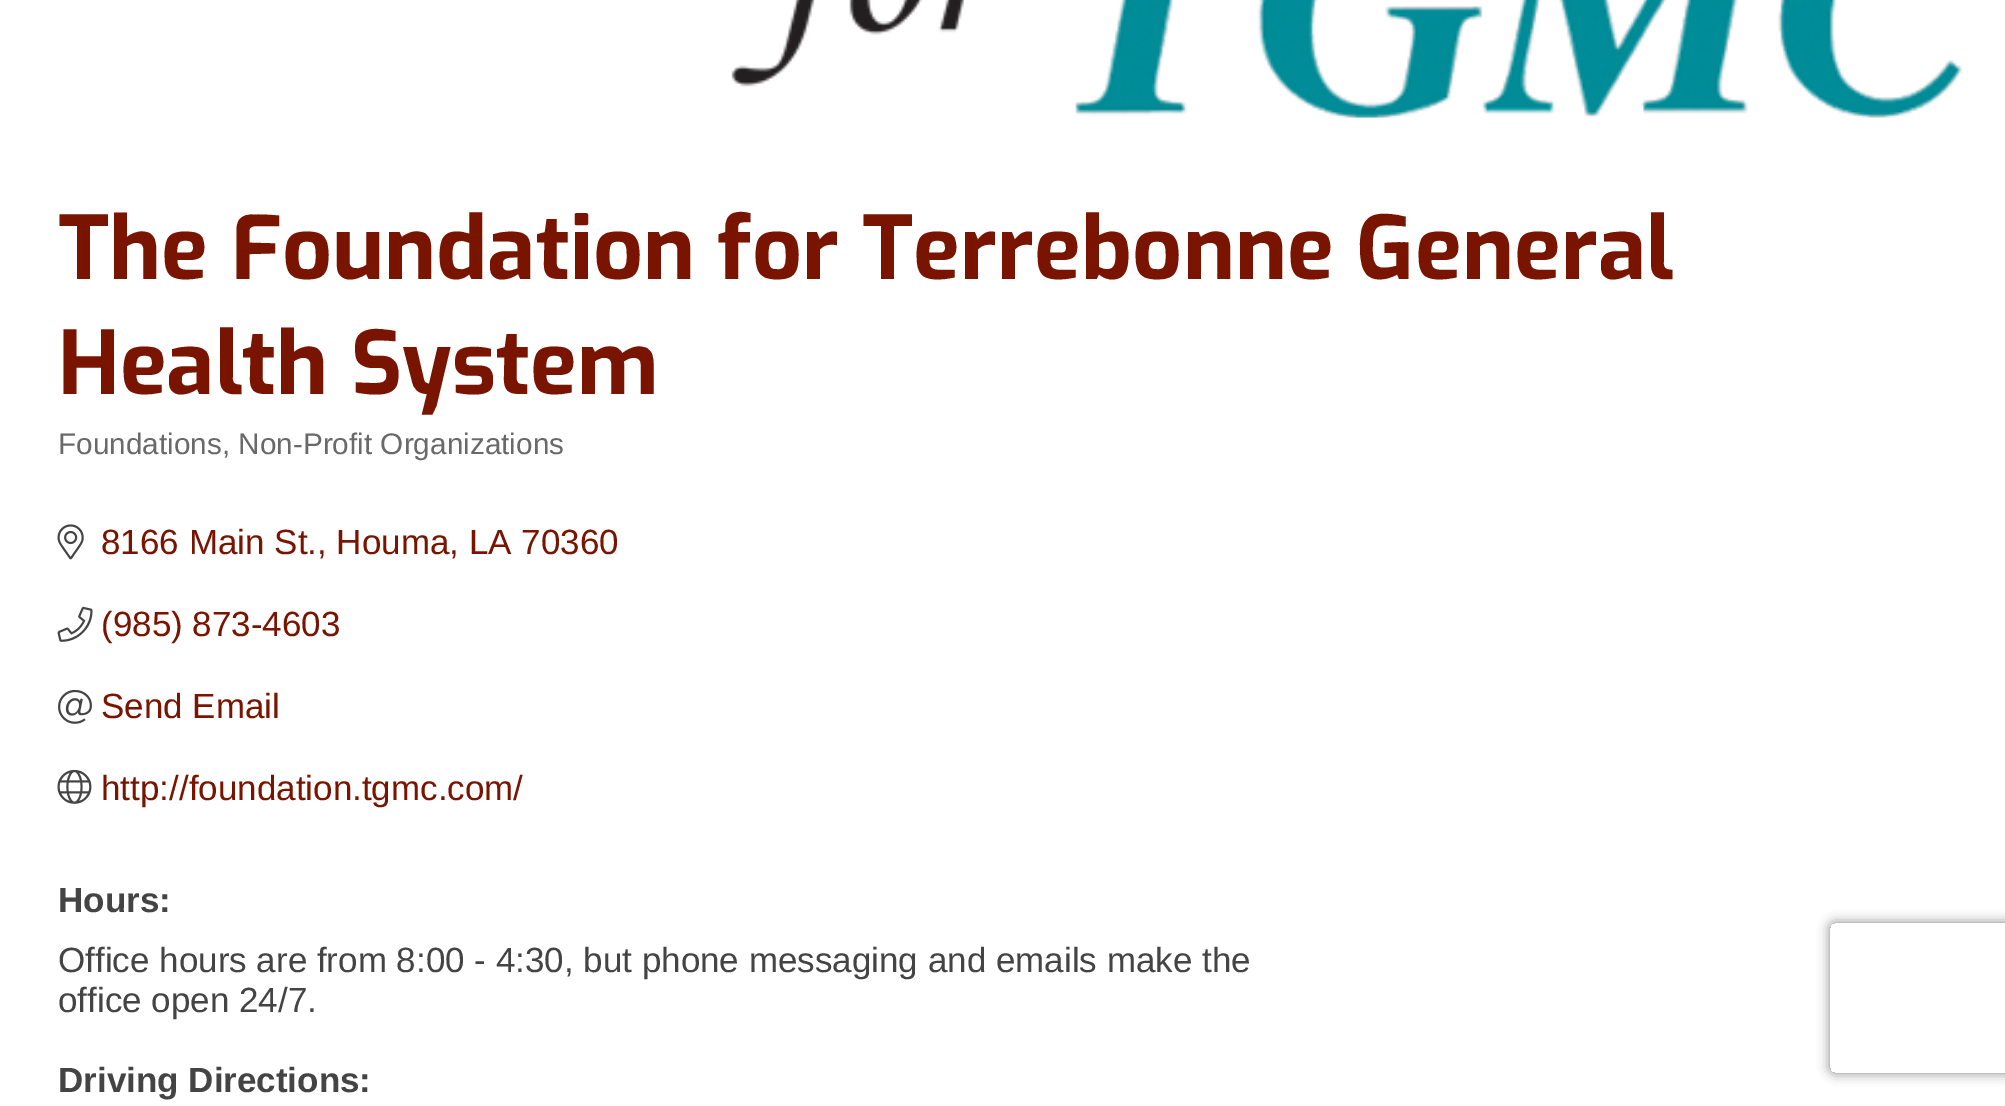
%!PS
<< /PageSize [2005 1106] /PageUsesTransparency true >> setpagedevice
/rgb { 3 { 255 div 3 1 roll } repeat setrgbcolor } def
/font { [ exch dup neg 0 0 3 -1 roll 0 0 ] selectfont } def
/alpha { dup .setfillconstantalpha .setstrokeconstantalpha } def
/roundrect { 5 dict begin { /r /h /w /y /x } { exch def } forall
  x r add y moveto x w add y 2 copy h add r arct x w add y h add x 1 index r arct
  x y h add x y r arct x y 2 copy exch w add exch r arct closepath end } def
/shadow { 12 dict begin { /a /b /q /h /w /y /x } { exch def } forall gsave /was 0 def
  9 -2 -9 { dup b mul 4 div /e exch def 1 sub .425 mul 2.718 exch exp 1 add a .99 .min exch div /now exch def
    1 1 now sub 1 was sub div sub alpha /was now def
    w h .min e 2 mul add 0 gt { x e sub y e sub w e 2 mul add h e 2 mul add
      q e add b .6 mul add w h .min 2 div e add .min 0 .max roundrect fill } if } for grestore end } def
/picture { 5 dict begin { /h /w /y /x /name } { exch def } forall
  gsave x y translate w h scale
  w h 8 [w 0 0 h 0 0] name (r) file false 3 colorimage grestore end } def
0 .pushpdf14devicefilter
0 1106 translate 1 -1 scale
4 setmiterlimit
255 255 255 rgb
0 0 2005 1106 rectfill
(img/1.rgb) 731 0 1232 118 picture
(img/2.rgb) 57 524 27 36 picture
(img/3.rgb) 57 606 36 36 picture
(img/4.rgb) 58 689 34 35 picture
(img/5.rgb) 57 769 35 35 picture
gsave
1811 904 moveto 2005 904 lineto 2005 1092 lineto 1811 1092 lineto closepath 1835 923 moveto 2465 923 lineto 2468 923 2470 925 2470 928 curveto 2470 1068 lineto 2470 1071 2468 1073 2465 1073 curveto 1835 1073 lineto 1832 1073 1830 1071 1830 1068 curveto 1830 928 lineto 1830 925 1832 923 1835 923 curveto closepath eoclip newpath
128 128 128 rgb
1830 923 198 150 5 6 1 shadow
grestore
/Exo-Bold 87.5 font
121 20 0 rgb
58 279 moveto (The Foundation for Terrebonne General) show
58 394 moveto (Health System) show
/LiberationSans-Regular 29.75 font
105 105 105 rgb
58 454 moveto (Foundations, Non-Profit Organizations) show
/LiberationSans-Regular 35 font
121 20 0 rgb
[
  [(8166 Main St., Houma, LA 70360) 101 554]
  [(\(985\) 873-4603) 101 636]
  [(Send Email) 101 718]
  [(http://foundation.tgmc.com/) 101 800]
] { aload pop moveto show } forall
/LiberationSans-Bold 35 font
68 68 68 rgb
58 912 moveto (Hours:) show
/LiberationSans-Regular 35 font
58 972 moveto (Office hours are from 8:00 - 4:30, but phone messaging and emails make the) show
58 1012 moveto (office open 24/7.) show
/LiberationSans-Bold 35 font
58 1092 moveto (Driving Directions:) show
.poppdf14devicefilter showpage
